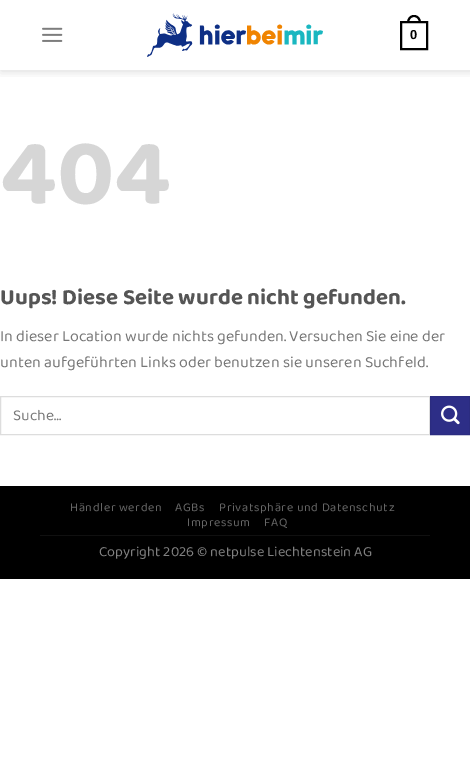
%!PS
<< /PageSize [470 759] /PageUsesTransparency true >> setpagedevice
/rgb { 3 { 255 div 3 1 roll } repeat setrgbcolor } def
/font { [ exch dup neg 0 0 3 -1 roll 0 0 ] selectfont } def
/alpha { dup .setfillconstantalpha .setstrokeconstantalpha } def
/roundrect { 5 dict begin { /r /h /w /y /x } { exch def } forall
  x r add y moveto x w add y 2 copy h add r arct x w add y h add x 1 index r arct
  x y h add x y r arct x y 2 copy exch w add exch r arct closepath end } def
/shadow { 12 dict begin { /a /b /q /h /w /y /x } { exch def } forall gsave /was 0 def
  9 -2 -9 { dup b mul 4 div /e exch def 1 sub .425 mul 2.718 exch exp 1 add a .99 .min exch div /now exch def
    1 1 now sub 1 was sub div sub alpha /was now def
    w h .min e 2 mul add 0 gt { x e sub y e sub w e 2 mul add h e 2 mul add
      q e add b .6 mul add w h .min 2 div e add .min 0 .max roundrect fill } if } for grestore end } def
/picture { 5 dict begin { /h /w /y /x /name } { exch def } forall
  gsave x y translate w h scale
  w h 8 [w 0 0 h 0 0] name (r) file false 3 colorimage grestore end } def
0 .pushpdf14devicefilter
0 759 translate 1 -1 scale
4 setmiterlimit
255 255 255 rgb
0 0 470 759 rectfill
gsave
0 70 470 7 rectclip
0 0 0 rgb
1 1 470 70 0 5 0.15 shadow
grestore
(img/1.rgb) 42 27 21 15 picture
(img/2.rgb) 147 13 176 44 picture
0 0 0 rgb
2 setlinewidth
401 22 26 27 rectstroke
414 15 moveto 418.5 15 421 19 421 23 curveto 407 23 lineto 407 19 409.5 15 414 15 curveto closepath 414 17 moveto 417.5 17 419 20 419 23 curveto 409 23 lineto 409 20 410.5 17 414 17 curveto closepath eofill
221 221 221 rgb
1 setlinewidth
0.5 396.5 429 38 rectstroke
45 46 135 rgb
430.5 396.5 moveto 469.5 396.5 lineto 469.5 434.5 lineto 430.5 434.5 lineto closepath gsave fill grestore
43 44 128 rgb
stroke
(img/3.rgb) 441 405 19 20 picture
0 0 0 rgb
0 486 470 93 rectfill
16 16 16 rgb
40 535 390 1 rectfill
/LiberationSans-Bold 13 font
0 0 0 rgb
410 39 moveto (0) show
/Baloo2-Bold 96 font
214 214 214 rgb
0 203 moveto (404) show
/Baloo2-Bold 22.4 font
85 85 85 rgb
0 304 moveto (Uups! Diese Seite wurde nicht gefunden.) show
/Baloo2-Regular 16 font
119 119 119 rgb
0 341 moveto (In dieser Location wurde nichts gefunden. Versuchen Sie eine der) show
0 367 moveto (unten aufgeführten Links oder benutzen sie unseren Suchfeld.) show
/Baloo2-Regular 15.5 font
13 420 moveto (Suche…) show
/Baloo2-Regular 12.25 font
102 102 102 rgb
70 511 moveto 0.6 0 (Händler werden) ashow
175 511 moveto 0.6 0 (AGBs) ashow
219 511 moveto 0.6 0 (Privatsphäre und Datenschutz) ashow
187 526 moveto 0.6 0 (Impressum) ashow
264 526 moveto 0.6 0 (FAQ) ashow
/Baloo2-Regular 14.4 font
128 128 128 rgb
99 556 moveto (Copyright 2026 © netpulse Liechtenstein AG) show
.poppdf14devicefilter showpage
